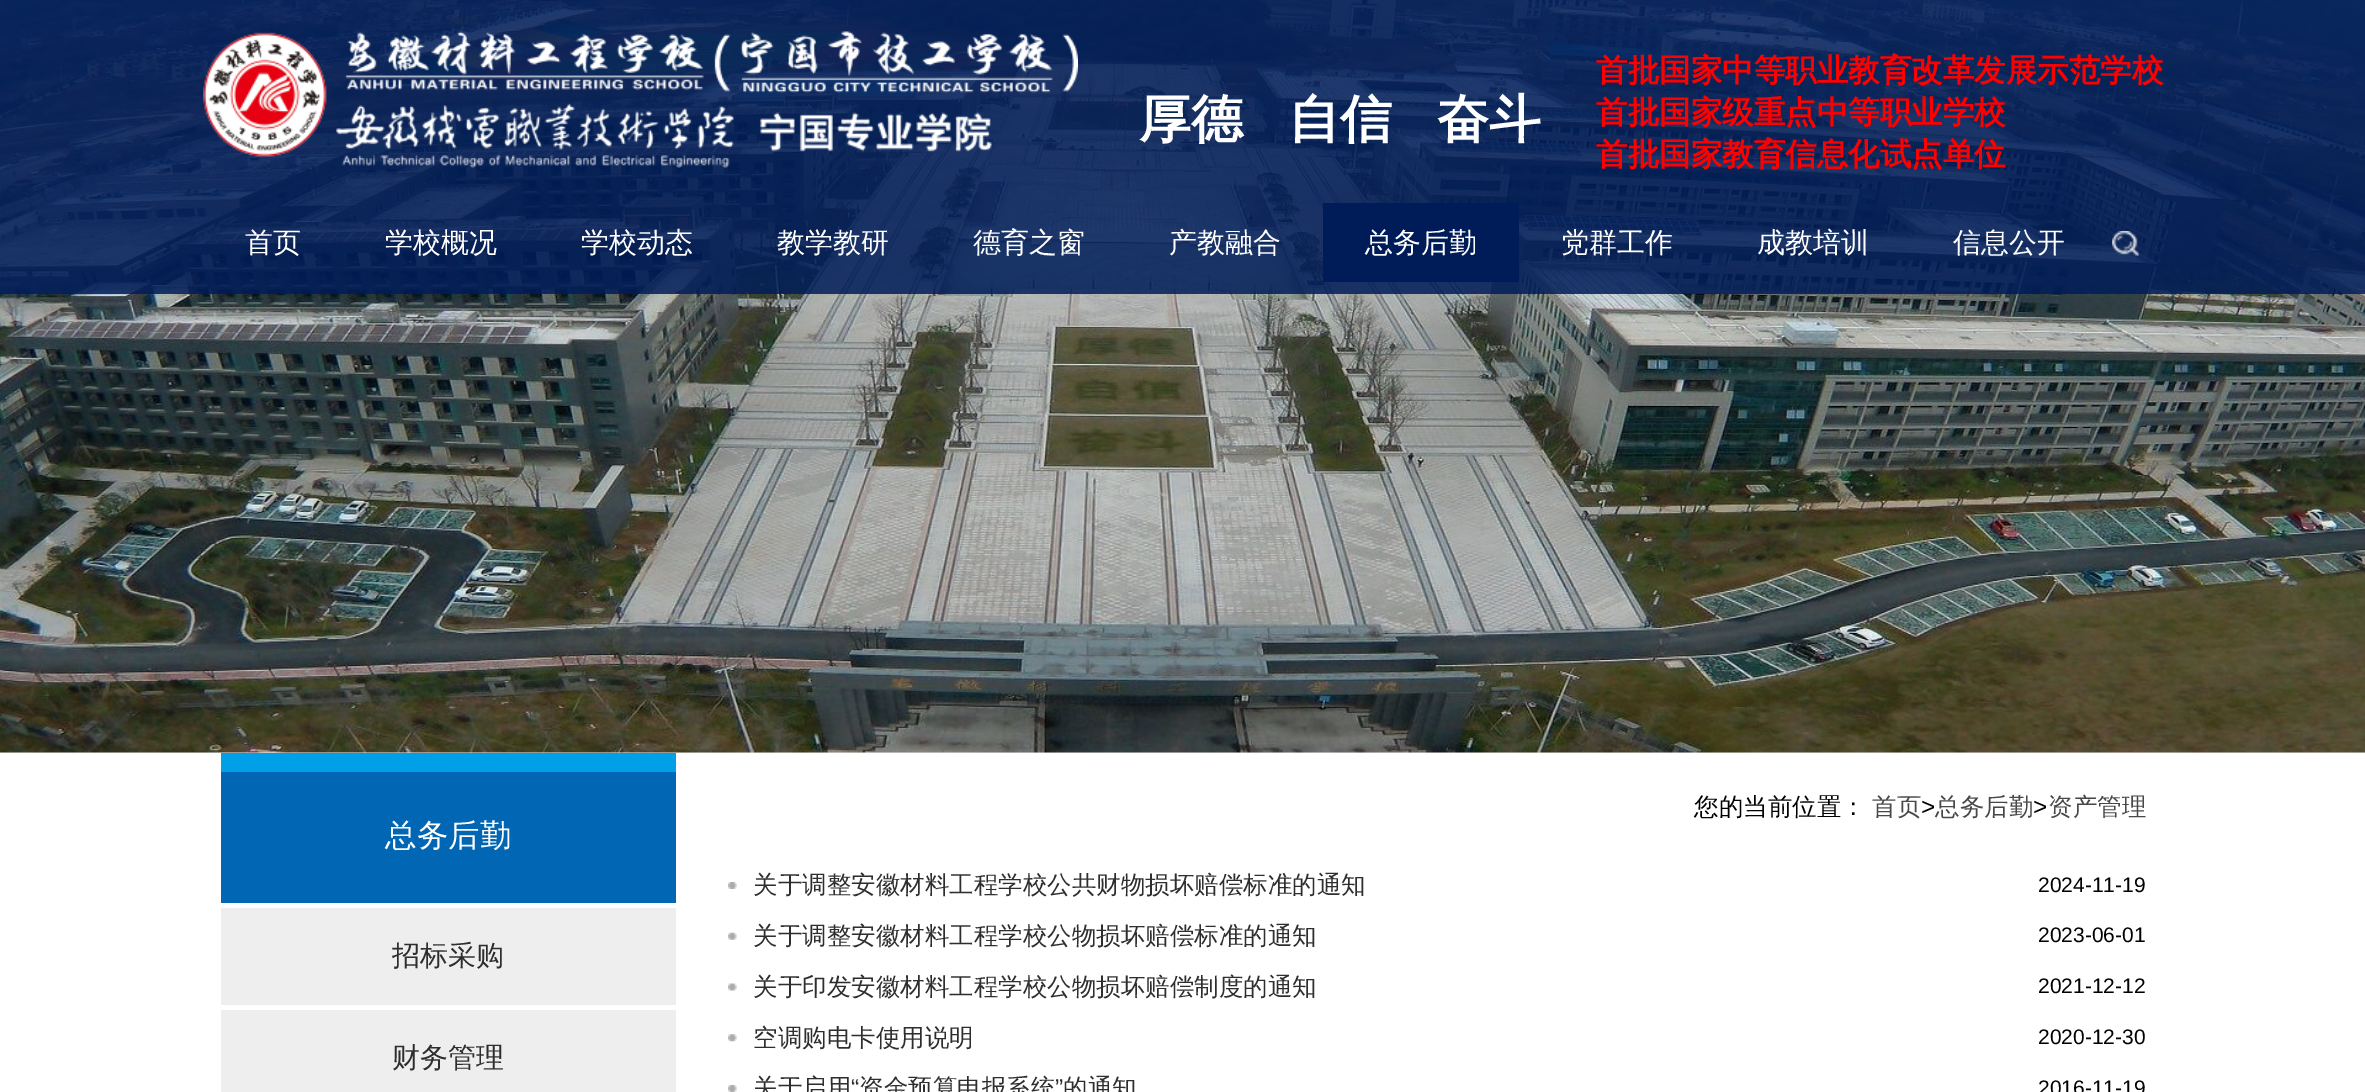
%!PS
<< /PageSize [2365 1092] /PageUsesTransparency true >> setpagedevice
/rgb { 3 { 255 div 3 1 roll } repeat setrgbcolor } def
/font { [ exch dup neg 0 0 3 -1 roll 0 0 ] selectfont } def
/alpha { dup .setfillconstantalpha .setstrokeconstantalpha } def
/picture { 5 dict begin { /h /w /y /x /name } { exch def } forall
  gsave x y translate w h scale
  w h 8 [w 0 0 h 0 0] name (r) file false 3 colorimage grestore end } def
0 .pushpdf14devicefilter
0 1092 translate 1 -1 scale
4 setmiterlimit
255 255 255 rgb
0 0 2365 1092 rectfill
238 238 238 rgb
0 752 2365 1 rectfill
(img/1.rgb) 0 0 2365 753 picture
0.85 alpha
0 28 88 rgb
0 0 2365 294 rectfill
1 alpha
(img/2.rgb) 203 31 875 137 picture
1323 203 196 79 rectfill
(img/3.rgb) 2112 231 27 25 picture
[
  [221 772 455 131 1 102 179]
  [221 753 455 19 0 160 233]
  [221 908 455 97 238 238 238]
  [221 1010 455 82 238 238 238]
] { aload pop rgb rectfill } forall
(img/4.rgb) 728 882 9 7 picture
(img/5.rgb) 728 932 9 8 picture
(img/6.rgb) 728 983 9 8 picture
(img/7.rgb) 728 1034 9 8 picture
(img/4.rgb) 728 1085 9 7 picture
/WenQuanYiZenHei-Bold 52 font
255 255 255 rgb
[
  [(厚德) 1139 137]
  [(自信) 1288 137]
  [(奋斗) 1437 137]
] { aload pop moveto show } forall
/WenQuanYiZenHei-Bold 31.5 font
255 0 0 rgb
[
  [(首批国家中等职业教育改革发展示范学校) 1596 81]
  [(首批国家级重点中等职业学校) 1596 123]
  [(首批国家教育信息化试点单位) 1596 165]
] { aload pop moveto show } forall
/WenQuanYiZenHei-Medium 28 font
255 255 255 rgb
[
  [(首页) 245 252]
  [(学校概况) 385 252]
  [(学校动态) 581 252]
  [(教学教研) 777 252]
  [(德育之窗) 973 252]
  [(产教融合) 1169 252]
  [(总务后勤) 1365 252]
  [(党群工作) 1561 252]
  [(成教培训) 1757 252]
  [(信息公开) 1953 252]
] { aload pop moveto show } forall
/WenQuanYiZenHei-Medium 31.5 font
385 846 moveto (总务后勤) show
/WenQuanYiZenHei-Medium 28 font
46 46 46 rgb
392 965 moveto (招标采购) show
392 1067 moveto (财务管理) show
/WenQuanYiZenHei-Medium 24.5 font
0 0 0 rgb
1694 815 moveto (您的当前位置：) show
72 72 72 rgb
1872 815 moveto (首页) show
/LiberationSans-Regular 24.5 font
0 0 0 rgb
1921 815 moveto (>) show
/WenQuanYiZenHei-Medium 24.5 font
72 72 72 rgb
1935 815 moveto (总务后勤) show
/LiberationSans-Regular 24.5 font
0 0 0 rgb
2033 815 moveto (>) show
/WenQuanYiZenHei-Medium 24.5 font
72 72 72 rgb
2048 815 moveto (资产管理) show
46 46 46 rgb
753 893 moveto (关于调整安徽材料工程学校公共财物损坏赔偿标准的通知) show
/LiberationSans-Regular 21 font
0 0 0 rgb
2038 892 moveto (2024-11-19) show
/WenQuanYiZenHei-Medium 24.5 font
46 46 46 rgb
753 944 moveto (关于调整安徽材料工程学校公物损坏赔偿标准的通知) show
/LiberationSans-Regular 21 font
0 0 0 rgb
2038 942 moveto (2023-06-01) show
/WenQuanYiZenHei-Medium 24.5 font
46 46 46 rgb
753 995 moveto (关于印发安徽材料工程学校公物损坏赔偿制度的通知) show
/LiberationSans-Regular 21 font
0 0 0 rgb
2038 993 moveto (2021-12-12) show
/WenQuanYiZenHei-Medium 24.5 font
46 46 46 rgb
753 1046 moveto (空调购电卡使用说明) show
/LiberationSans-Regular 21 font
0 0 0 rgb
2038 1044 moveto (2020-12-30) show
/WenQuanYiZenHei-Medium 24.5 font
46 46 46 rgb
753 1096 moveto (关于启用) show
/LiberationSans-Regular 24.5 font
851 1096 moveto (“) show
/WenQuanYiZenHei-Medium 24.5 font
859 1096 moveto (资金预算申报系统) show
/LiberationSans-Regular 24.5 font
1055 1096 moveto (”) show
/WenQuanYiZenHei-Medium 24.5 font
1063 1096 moveto (的通知) show
/LiberationSans-Regular 21 font
0 0 0 rgb
2038 1095 moveto (2016-11-19) show
.poppdf14devicefilter showpage
